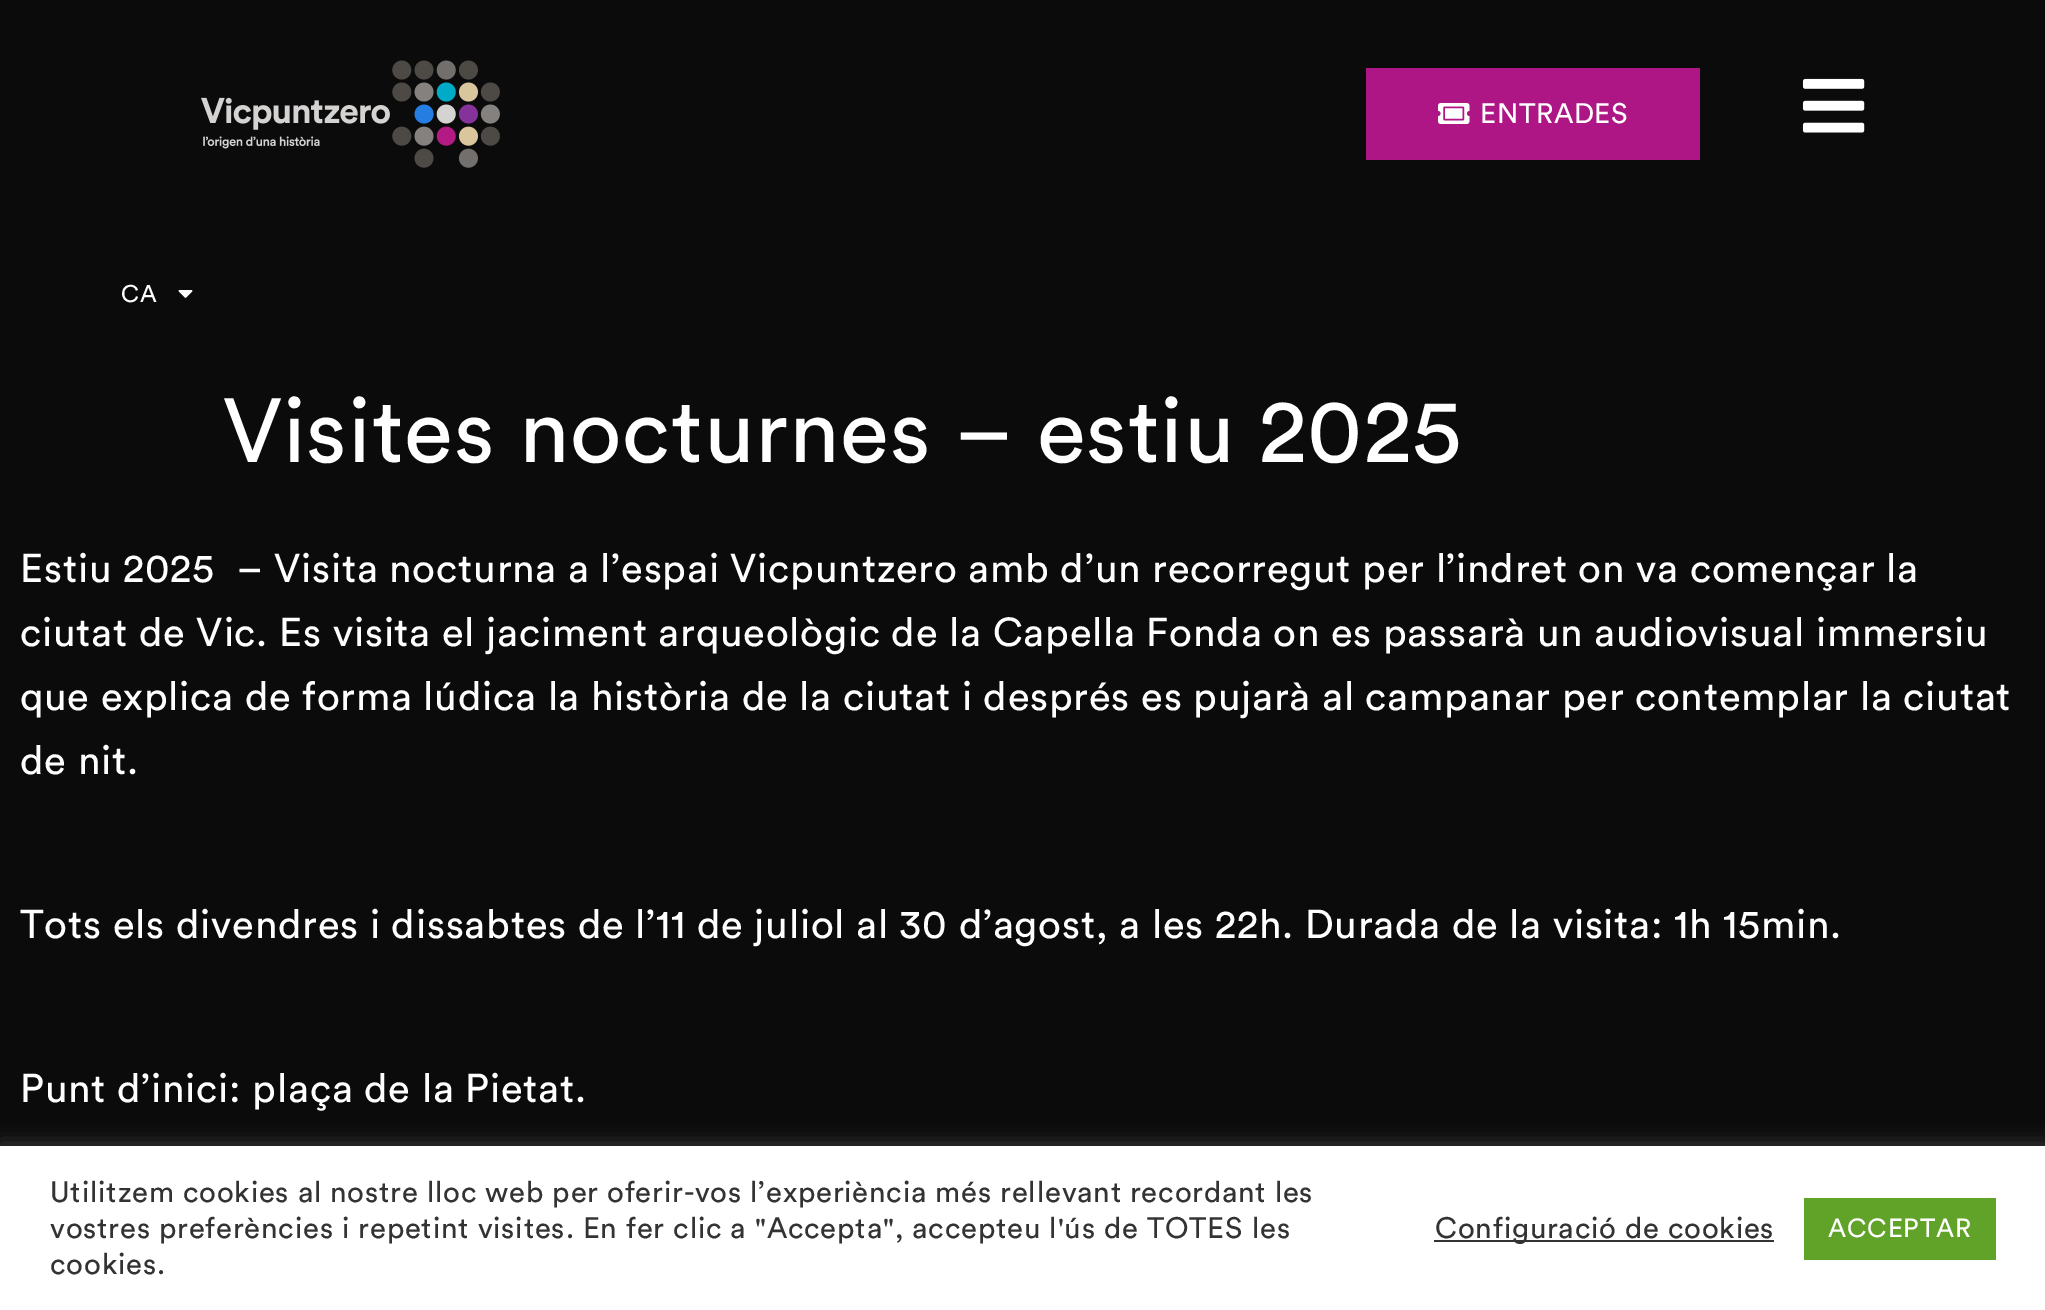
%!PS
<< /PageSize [2045 1310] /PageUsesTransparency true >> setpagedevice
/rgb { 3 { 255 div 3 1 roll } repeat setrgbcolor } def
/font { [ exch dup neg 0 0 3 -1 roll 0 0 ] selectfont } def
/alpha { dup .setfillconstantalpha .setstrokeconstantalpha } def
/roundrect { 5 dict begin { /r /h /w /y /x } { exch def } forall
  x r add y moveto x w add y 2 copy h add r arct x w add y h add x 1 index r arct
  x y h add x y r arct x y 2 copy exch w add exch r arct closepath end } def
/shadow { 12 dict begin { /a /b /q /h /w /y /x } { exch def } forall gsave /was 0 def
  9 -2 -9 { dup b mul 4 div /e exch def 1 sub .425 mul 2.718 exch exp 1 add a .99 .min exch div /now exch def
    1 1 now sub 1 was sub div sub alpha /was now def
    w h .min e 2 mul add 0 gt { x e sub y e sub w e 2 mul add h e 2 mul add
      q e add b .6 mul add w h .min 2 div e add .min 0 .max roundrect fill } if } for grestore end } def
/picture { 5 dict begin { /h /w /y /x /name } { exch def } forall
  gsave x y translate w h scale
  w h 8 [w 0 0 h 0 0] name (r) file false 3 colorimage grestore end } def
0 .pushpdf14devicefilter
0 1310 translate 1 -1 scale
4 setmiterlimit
11 11 11 rgb
0 0 2045 1310 rectfill
(img/1.rgb) 201 60 299 108 picture
175 22 133 rgb
1366 68 334 92 rectfill
(img/2.rgb) 1438 103 32 21 picture
(img/3.rgb) 1802 78 63 55 picture
(img/4.rgb) 178 290 15 8 picture
172 171 171 rgb
0 1144 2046 164 0 10 0.3 shadow
[
  [0 1146 2045 164 255 255 255]
  [1434 1240 340 2 51 51 51]
  [1804 1198 192 62 97 162 41]
] { aload pop rgb rectfill } forall
/Circular-Regular 28 font
255 255 255 rgb
1480 123 moveto 0.5 0 (ENTRADES) ashow
/Circular-Regular 24 font
121 302 moveto 0.8 0 (CA) ashow
/Circular-Regular 90 font
223 462 moveto 0.8 0 (Visites nocturnes – estiu 2025) ashow
/Circular-Regular 40 font
20 582 moveto 0.8 0 (Estiu 2025  – Visita nocturna a l’espai Vicpuntzero amb d’un recorregut per l’indret on va començar la) ashow
20 646 moveto 0.8 0 (ciutat de Vic. Es visita el jaciment arqueològic de la Capella Fonda on es passarà un audiovisual immersiu) ashow
20 710 moveto 0.8 0 (que explica de forma lúdica la història de la ciutat i després es pujarà al campanar per contemplar la ciutat) ashow
20 774 moveto 0.8 0 (de nit.) ashow
20 938 moveto 0.8 0 (Tots els divendres i dissabtes de l’11 de juliol al 30 d’agost, a les 22h. Durada de la visita: 1h 15min.) ashow
20 1102 moveto 0.8 0 (Punt d’inici: plaça de la Pietat.) ashow
/Circular-Regular 29.35 font
51 51 51 rgb
50 1202 moveto 0.8 0 (Utilitzem cookies al nostre lloc web per oferir-vos l’experiència més rellevant recordant les) ashow
50 1238 moveto 0.8 0 (vostres preferències i repetint visites. En fer clic a "Accepta", accepteu l'ús de TOTES les) ashow
50 1274 moveto 0.8 0 (cookies.) ashow
1435 1238 moveto 0.8 0 (Configuració de cookies) ashow
/Circular-Regular 26 font
255 255 255 rgb
1828 1237 moveto 0.8 0 (ACCEPTAR) ashow
.poppdf14devicefilter showpage
